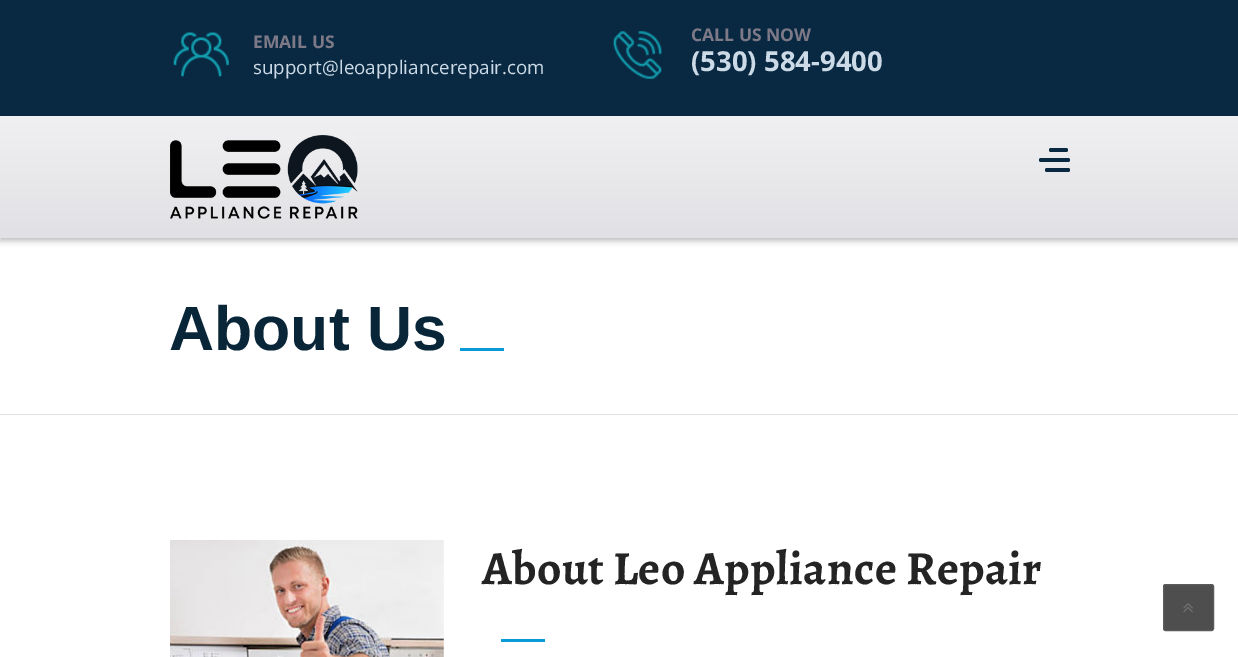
%!PS
<< /PageSize [1238 657] /PageUsesTransparency true >> setpagedevice
/rgb { 3 { 255 div 3 1 roll } repeat setrgbcolor } def
/font { [ exch dup neg 0 0 3 -1 roll 0 0 ] selectfont } def
/alpha { dup .setfillconstantalpha .setstrokeconstantalpha } def
/roundrect { 5 dict begin { /r /h /w /y /x } { exch def } forall
  x r add y moveto x w add y 2 copy h add r arct x w add y h add x 1 index r arct
  x y h add x y r arct x y 2 copy exch w add exch r arct closepath end } def
/shadow { 12 dict begin { /a /b /q /h /w /y /x } { exch def } forall gsave /was 0 def
  9 -2 -9 { dup b mul 4 div /e exch def 1 sub .425 mul 2.718 exch exp 1 add a .99 .min exch div /now exch def
    1 1 now sub 1 was sub div sub alpha /was now def
    w h .min e 2 mul add 0 gt { x e sub y e sub w e 2 mul add h e 2 mul add
      q e add b .6 mul add w h .min 2 div e add .min 0 .max roundrect fill } if } for grestore end } def
/picture { 5 dict begin { /h /w /y /x /name } { exch def } forall
  gsave x y translate w h scale
  w h 8 [w 0 0 h 0 0] name (r) file false 3 colorimage grestore end } def
0 .pushpdf14devicefilter
0 657 translate 1 -1 scale
4 setmiterlimit
255 255 255 rgb
0 0 1238 657 rectfill
0 0 0 rgb
0 4 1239 237 0 3 0.25 shadow
gsave 0 116 moveto 1238 116 lineto 1238 238 lineto 0 238 lineto closepath clip newpath
<< /ShadingType 2 /ColorSpace /DeviceRGB /Coords [619 238 619 0] /Extend [true true] /Function << /FunctionType 2 /Domain [0 1] /C0 [0.882 0.878 0.894] /C1 [1 1 1] /N 1 >> >> shfill grestore
9 41 66 rgb
0 0 1238 116 rectfill
(img/1.rgb) 173 32 56 45 picture
(img/2.rgb) 613 31 49 48 picture
(img/3.rgb) 170 135 188 84 picture
1039 158 31 4 2 roundrect fill
1049 148 19 4 2 roundrect fill
1045 168 25 4 2 roundrect fill
225 225 225 rgb
0 414 1238 1 rectfill
9 155 215 rgb
460 348 44 3 rectfill
(img/4.rgb) 170 540 274 117 picture
501 639 44 3 rectfill
78 78 78 rgb
1163.5 584.5 50 46 2 roundrect gsave fill grestore
92 92 92 rgb
stroke
(img/5.rgb) 1183 603 10 10 picture
/OpenSans-Bold 17.5 font
125 121 135 rgb
253 48 moveto (EMAIL US) show
/OpenSans-Regular 18.75 font
203 218 230 rgb
253 74 moveto (support@leoappliancerepair.com) show
/OpenSans-Bold 17.5 font
125 121 135 rgb
691 41 moveto (CALL US NOW) show
/OpenSans-Bold 27.5 font
203 218 230 rgb
691 71 moveto (\(530\) 584-9400) show
/LiberationSans-Bold 62.5 font
8 38 56 rgb
169 350 moveto (About Us) show
/Alegreya-Bold 47.5 font
36 36 36 rgb
482 584 moveto 0.4 0 (About Leo Appliance Repair) ashow
.poppdf14devicefilter showpage
